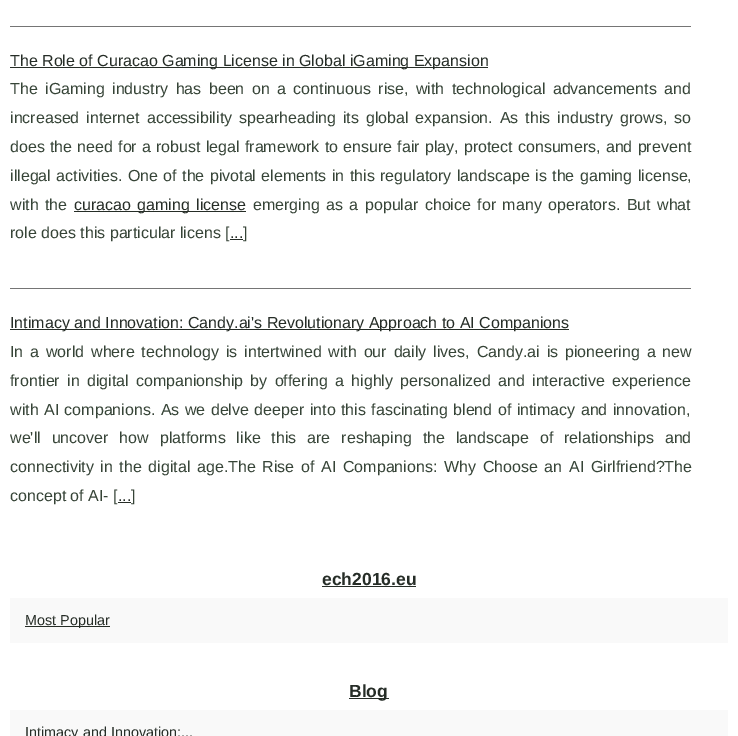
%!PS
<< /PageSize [738 736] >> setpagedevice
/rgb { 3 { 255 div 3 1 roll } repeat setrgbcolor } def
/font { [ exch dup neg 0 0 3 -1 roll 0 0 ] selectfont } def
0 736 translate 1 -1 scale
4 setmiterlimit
255 255 255 rgb
0 0 738 736 rectfill
[
  [10 26 681 1 117 117 117]
  [10 67 478 1 38 45 39]
  [74 211 172 1 38 45 39]
  [230 239 13 1 38 45 39]
  [10 288 681 1 117 117 117]
  [10 329 559 1 38 45 39]
  [118 502 13 1 38 45 39]
  [322 586 94 1 38 45 39]
  [10 598 718 45 249 249 249]
  [25 626 85 1 38 45 39]
  [349 698 40 1 38 45 39]
  [10 710 718 26 249 249 249]
] { aload pop rgb rectfill } forall
/LiberationSans-Regular 16 font
38 45 39 rgb
10 66 moveto (The Role of Curacao Gaming License in Global iGaming Expansion) show
54 68 55 rgb
10 94 moveto 3 0 32 (The iGaming industry has been on a continuous rise, with technological advancements and) widthshow
10 123 moveto 2.5 0 32 (increased internet accessibility spearheading its global expansion. As this industry grows, so) widthshow
10 152 moveto 0.75 0 32 (does the need for a robust legal framework to ensure fair play, protect consumers, and prevent) widthshow
10 181 moveto 1 0 32 (illegal activities. One of the pivotal elements in this regulatory landscape is the gaming license,) widthshow
10 210 moveto 2 0 32 (with the) widthshow
38 45 39 rgb
74 210 moveto 2 0 32 (curacao gaming license) widthshow
54 68 55 rgb
253 210 moveto 2 0 32 (emerging as a popular choice for many operators. But what) widthshow
10 238 moveto (role does this particular licens [) show
38 45 39 rgb
230 238 moveto (...) show
54 68 55 rgb
243 238 moveto (]) show
38 45 39 rgb
10 328 moveto (Intimacy and Innovation: Candy.ai's Revolutionary Approach to AI Companions) show
54 68 55 rgb
10 357 moveto 2.4 0 32 (In a world where technology is intertwined with our daily lives, Candy.ai is pioneering a new) widthshow
10 386 moveto 2.75 0 32 (frontier in digital companionship by offering a highly personalized and interactive experience) widthshow
10 415 moveto 1 0 32 (with AI companions. As we delve deeper into this fascinating blend of intimacy and innovation,) widthshow
10 443 moveto 6.5 0 32 (we'll uncover how platforms like this are reshaping the landscape of relationships and) widthshow
10 472 moveto 2.25 0 32 (connectivity in the digital age.The Rise of AI Companions: Why Choose an AI Girlfriend?The) widthshow
10 501 moveto (concept of AI- [) show
38 45 39 rgb
118 501 moveto (...) show
54 68 55 rgb
131 501 moveto (]) show
/LiberationSans-Bold 17.5 font
38 45 39 rgb
322 585 moveto (ech2016.eu) show
/LiberationSans-Regular 14.4 font
25 625 moveto (Most Popular) show
/LiberationSans-Bold 17.5 font
349 697 moveto (Blog) show
/LiberationSans-Regular 14.4 font
25 737 moveto (Intimacy and Innovation:...) show
showpage
